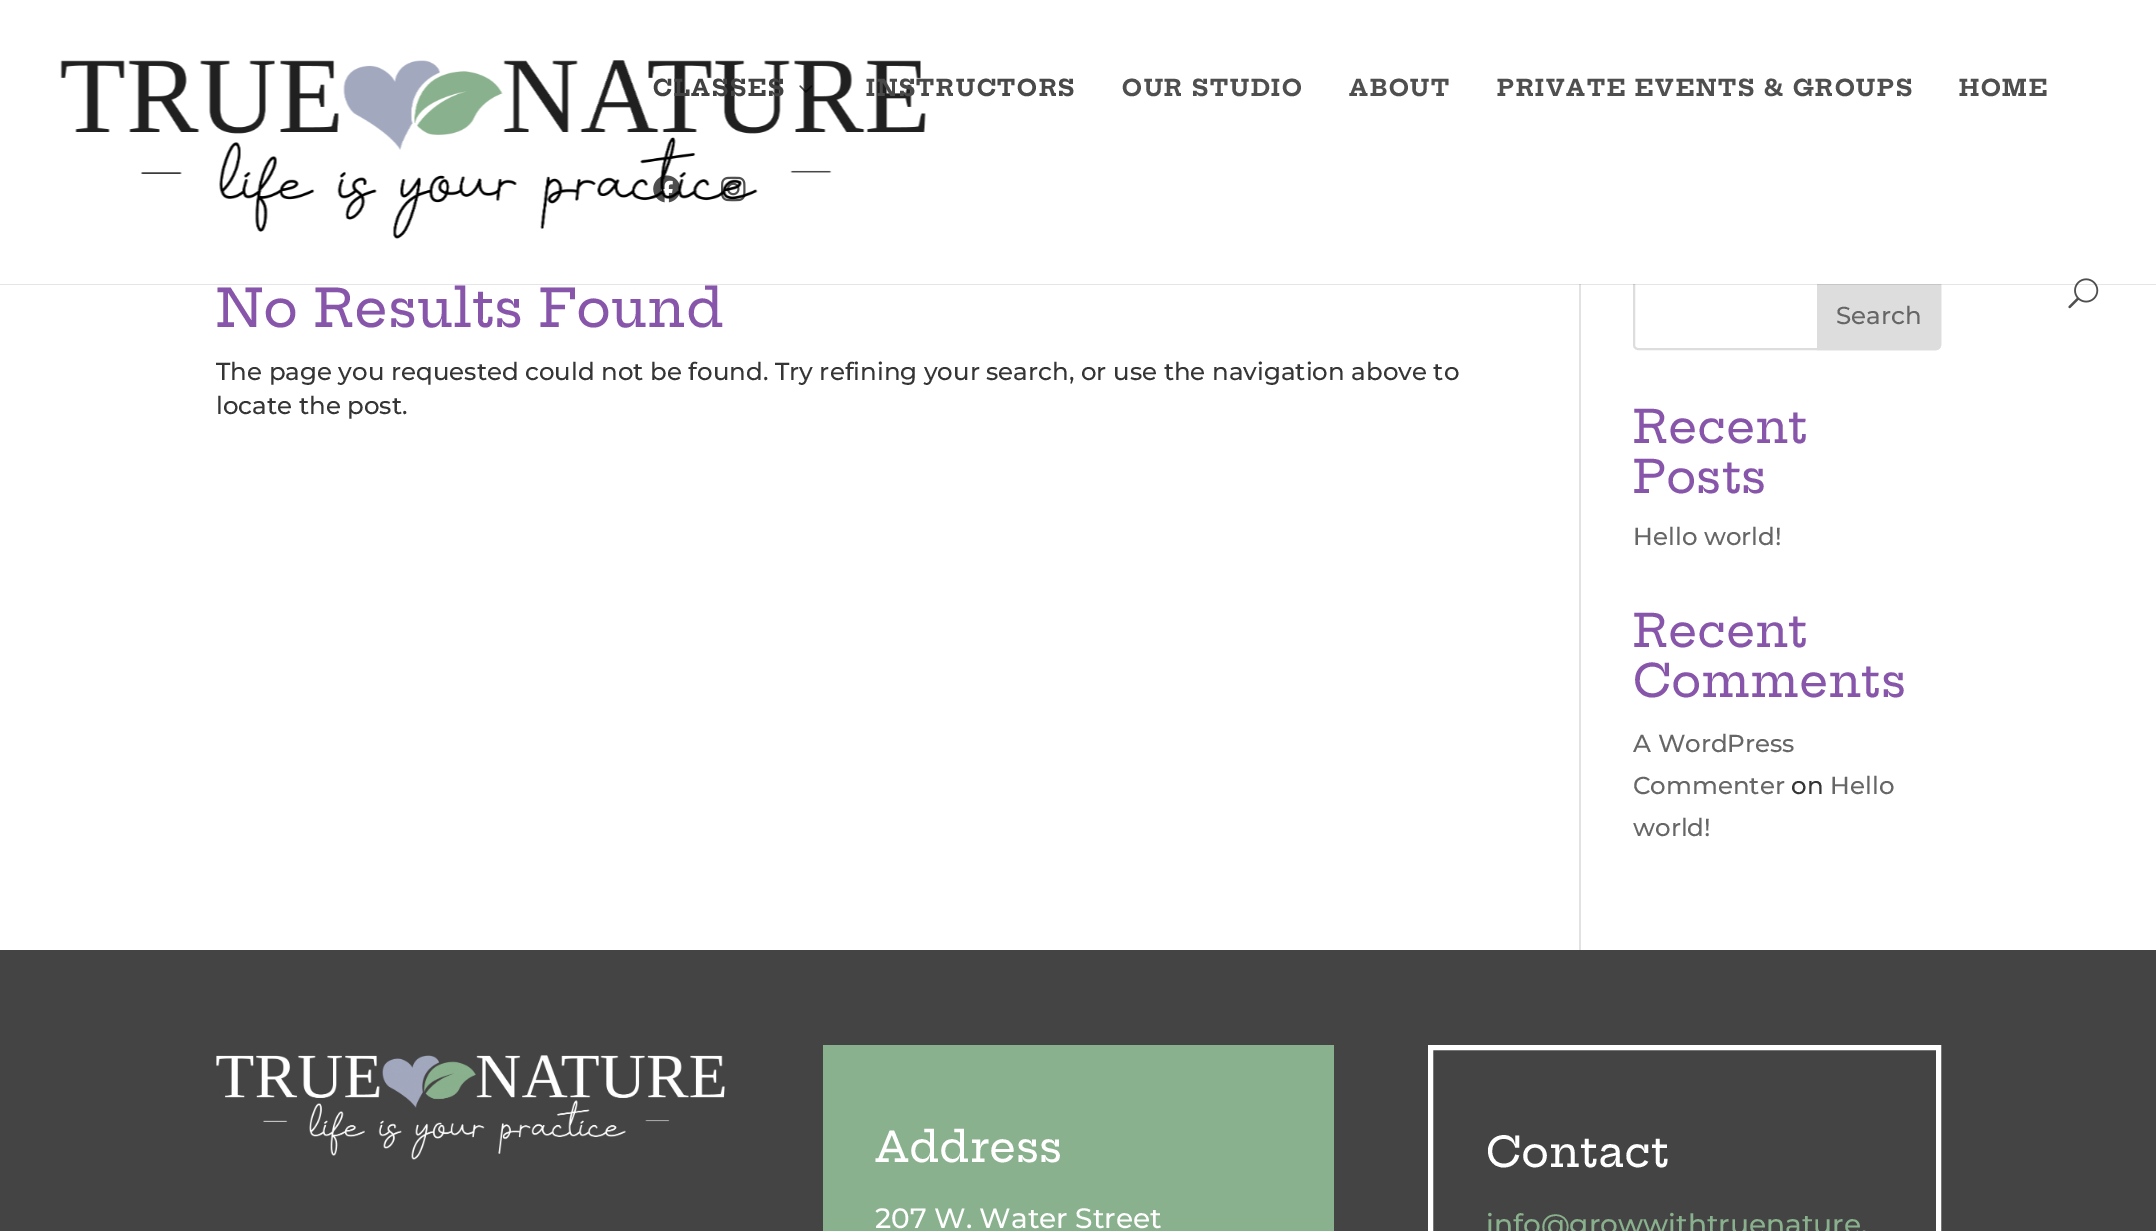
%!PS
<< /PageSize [2156 1231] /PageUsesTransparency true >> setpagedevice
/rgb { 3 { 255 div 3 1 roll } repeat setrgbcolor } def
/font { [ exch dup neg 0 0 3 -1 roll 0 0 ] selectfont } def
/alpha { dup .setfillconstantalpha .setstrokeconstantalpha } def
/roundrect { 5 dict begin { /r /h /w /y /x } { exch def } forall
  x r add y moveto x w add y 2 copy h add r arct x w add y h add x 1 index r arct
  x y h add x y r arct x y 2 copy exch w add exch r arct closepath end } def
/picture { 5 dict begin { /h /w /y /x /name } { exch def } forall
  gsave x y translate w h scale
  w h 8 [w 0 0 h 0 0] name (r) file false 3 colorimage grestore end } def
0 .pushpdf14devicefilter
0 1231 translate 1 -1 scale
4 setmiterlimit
255 255 255 rgb
0 0 2156 1231 rectfill
226 226 226 rgb
1579 284 2 666 rectfill
221 221 221 rgb
2 setlinewidth
1634 281 306 68 4 roundrect stroke
1818 281 moveto 1936 281 lineto 1938 281 1940 283 1940 285 curveto 1940 345 lineto 1940 347 1938 349 1936 349 curveto 1818 349 lineto closepath gsave fill grestore
stroke
0.1 alpha
0 0 0 rgb
0 284 2156 1 rectfill
1 alpha
255 255 255 rgb
1633 280 308 4 rectfill
(img/1.rgb) 60 60 866 179 picture
(img/2.rgb) 799 85 14 8 picture
(img/3.rgb) 653 175 28 28 picture
(img/4.rgb) 721 176 25 26 picture
(img/5.rgb) 2068 278 31 31 picture
68 68 68 rgb
0 950 2156 281 rectfill
(img/6.rgb) 216 1055 509 105 picture
138 177 141 rgb
823 1045 511 186 rectfill
255 255 255 rgb
5 setlinewidth
1430.5 1047.5 508 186 rectstroke
/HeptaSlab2-ExtraLight 22.75 font
65 65 65 rgb
653 96 moveto 1.75 0 (CLASSES) ashow
73 73 73 rgb
866 96 moveto 1.75 0 (INSTRUCTORS) ashow
79 79 79 rgb
1122 96 moveto 1.75 0 (OUR STUDIO) ashow
1349 96 moveto 1.75 0 (ABOUT) ashow
1497 96 moveto 1.75 0 (PRIVATE EVENTS & GROUPS) ashow
1959 96 moveto 1.75 0 (HOME) ashow
/HeptaSlab-ExtraLight 52.5 font
135 85 170 rgb
216 327 moveto (No Results Found) show
/Montserrat-Thin 24.5 font
53 53 53 rgb
216 380 moveto (The page you requested could not be found. Try refining your search, or use the navigation above to) show
216 414 moveto (locate the post.) show
102 102 102 rgb
1836 324 moveto (Search) show
/HeptaSlab-ExtraLight 45.5 font
135 85 170 rgb
1633 443 moveto (Recent) show
1633 493 moveto (Posts) show
/Montserrat-Thin 24.5 font
102 102 102 rgb
1633 545 moveto (Hello world!) show
/HeptaSlab-ExtraLight 45.5 font
135 85 170 rgb
1633 647 moveto (Recent) show
1633 697 moveto (Comments) show
/Montserrat-Thin 24.5 font
102 102 102 rgb
1633 752 moveto (A WordPress) show
1633 794 moveto (Commenter) show
53 53 53 rgb
1791 794 moveto (on) show
102 102 102 rgb
1830 794 moveto (Hello) show
1633 836 moveto (world!) show
/HeptaSlab-ExtraLight 42 font
255 255 255 rgb
875 1162 moveto (Address) show
/Montserrat-Thin 28 font
875 1228 moveto (207 W. Water Street) show
/HeptaSlab-ExtraLight 42 font
1486 1167 moveto (Contact) show
/Montserrat-Thin 28 font
138 177 141 rgb
1486 1234 moveto (info@growwithtruenature.) show
.poppdf14devicefilter showpage
